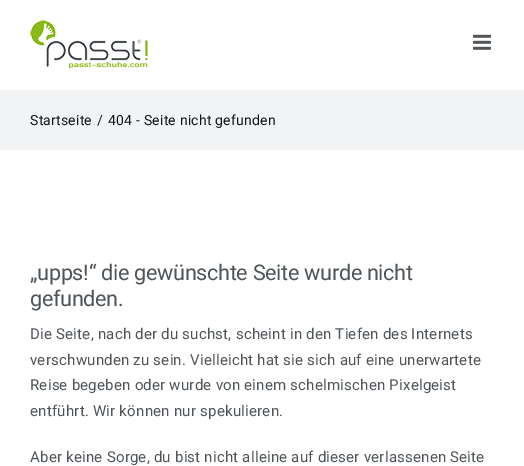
%!PS
<< /PageSize [524 466] >> setpagedevice
/rgb { 3 { 255 div 3 1 roll } repeat setrgbcolor } def
/font { [ exch dup neg 0 0 3 -1 roll 0 0 ] selectfont } def
/picture { 5 dict begin { /h /w /y /x /name } { exch def } forall
  gsave x y translate w h scale
  w h 8 [w 0 0 h 0 0] name (r) file false 3 colorimage grestore end } def
0 466 translate 1 -1 scale
4 setmiterlimit
255 255 255 rgb
0 0 524 466 rectfill
(img/1.rgb) 30 20 118 49 picture
(img/2.rgb) 473 34 18 16 picture
242 243 245 rgb
0 90 524 60 rectfill
/Roboto-Regular 14 font
20 22 23 rgb
30 125 moveto 0.23 0 (Startseite) ashow
97 125 moveto 0.23 0 (/) ashow
108 125 moveto 0.23 0 (404 - Seite nicht gefunden) ashow
/Roboto-Regular 21.6 font
80 85 89 rgb
30 280 moveto -0.3 0 („upps!“ die gewünschte Seite wurde nicht) ashow
30 306 moveto -0.3 0 (gefunden.) ashow
/Roboto-Regular 15 font
30 339 moveto 0.23 0 (Die Seite, nach der du suchst, scheint in den Tiefen des Internets) ashow
30 365 moveto 0.23 0 (verschwunden zu sein. Vielleicht hat sie sich auf eine unerwartete) ashow
30 390 moveto 0.23 0 (Reise begeben oder wurde von einem schelmischen Pixelgeist) ashow
30 416 moveto 0.23 0 (entführt. Wir können nur spekulieren.) ashow
30 462 moveto 0.23 0 (Aber keine Sorge, du bist nicht alleine auf dieser verlassenen Seite) ashow
showpage
